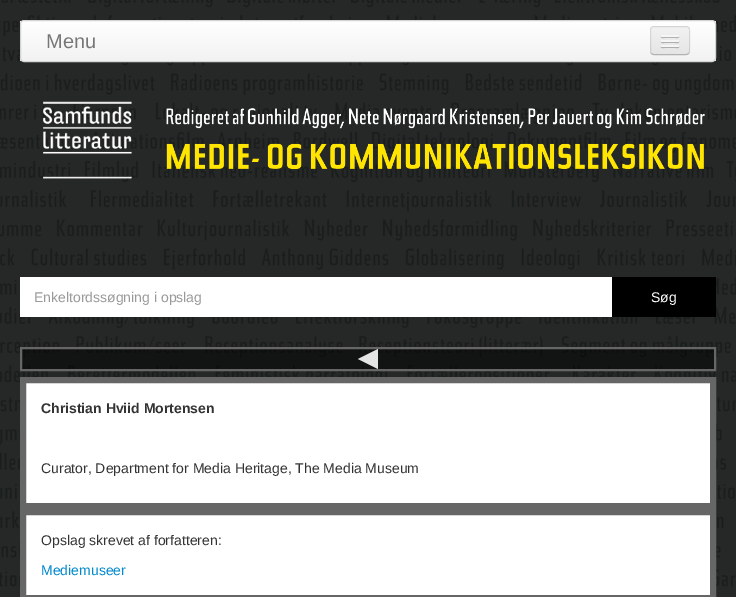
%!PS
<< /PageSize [736 597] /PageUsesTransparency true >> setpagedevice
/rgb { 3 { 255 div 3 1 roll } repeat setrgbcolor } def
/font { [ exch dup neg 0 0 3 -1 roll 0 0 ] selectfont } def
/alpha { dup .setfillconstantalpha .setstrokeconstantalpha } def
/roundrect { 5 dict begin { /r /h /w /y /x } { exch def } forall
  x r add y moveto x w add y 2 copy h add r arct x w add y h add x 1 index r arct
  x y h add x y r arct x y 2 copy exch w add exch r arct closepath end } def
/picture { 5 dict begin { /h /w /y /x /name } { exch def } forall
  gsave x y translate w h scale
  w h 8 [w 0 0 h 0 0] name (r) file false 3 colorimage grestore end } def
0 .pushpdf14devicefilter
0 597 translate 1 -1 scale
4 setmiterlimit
255 255 255 rgb
0 0 736 597 rectfill
(img/1.rgb) 0 0 736 597 picture
gsave
20 20 696 42 4 roundrect clip newpath
gsave 20 21 moveto 716 21 lineto 716 61 lineto 20 61 lineto closepath clip newpath
<< /ShadingType 2 /ColorSpace /DeviceRGB /Coords [368 21 368 61] /Extend [true true] /Function << /FunctionType 2 /Domain [0 1] /C0 [1 1 1] /C1 [0.949 0.949 0.949] /N 1 >> >> shfill grestore
grestore
212 212 212 rgb
20.5 20.5 695 41 3.5 roundrect stroke
237 237 237 rgb
650 26 40 29 4 roundrect fill
gsave
650 26 40 29 4 roundrect clip newpath
gsave 650 27 moveto 690 27 lineto 690 54 lineto 650 54 lineto closepath clip newpath
<< /ShadingType 2 /ColorSpace /DeviceRGB /Coords [670 27 670 54] /Extend [true true] /Function << /FunctionType 2 /Domain [0 1] /C0 [0.949 0.949 0.949] /C1 [0.898 0.898 0.898] /N 1 >> >> shfill grestore
grestore
178 178 178 rgb
688.5 53.5 moveto 688 54 687 54.5 686 54.5 curveto 654 54.5 lineto 653 54.5 652 54 651.5 53.5 curveto stroke
0.1 alpha
0 0 0 rgb
651.5 53.5 moveto 651 53 650.5 52 650.5 51 curveto 650.5 30 lineto 650.5 29 651 28 651.5 27.5 curveto 652 27 653 26.5 654 26.5 curveto 686 26.5 lineto 687 26.5 688 27 688.5 27.5 curveto 689 28 689.5 29 689.5 30 curveto 689.5 51 lineto 689.5 52 689 53 688.5 53.5 curveto stroke
1 alpha
178 178 178 rgb
661 36.5 moveto 660 38.5 664.5 38 664.5 38 curveto 675.5 38 lineto 675.5 38 680 38.5 679 36.5 curveto 678 37.5 671.5 37 670 37 curveto 668.5 37 662 37.5 661 36.5 curveto closepath fill
245 245 245 rgb
661 35 18 2 1 roundrect fill
176 176 176 rgb
661 41.5 moveto 660 43.5 664.5 43 664.5 43 curveto 675.5 43 lineto 675.5 43 680 43.5 679 41.5 curveto 678 42.5 671.5 42 670 42 curveto 668.5 42 662 42.5 661 41.5 curveto closepath fill
245 245 245 rgb
661 40 18 2 1 roundrect fill
174 174 174 rgb
661 46.5 moveto 660 48.5 664.5 48 664.5 48 curveto 675.5 48 lineto 675.5 48 680 48.5 679 46.5 curveto 678 47.5 671.5 47 670 47 curveto 668.5 47 662 47.5 661 46.5 curveto closepath fill
245 245 245 rgb
661 45 18 2 1 roundrect fill
(img/2.rgb) 43 101 89 78 picture
(img/3.rgb) 166 108 539 62 picture
255 255 255 rgb
20 277 592 40 rectfill
0 0 0 rgb
612 277 104 40 rectfill
0.5 alpha
21 348 moveto 715 348 lineto 715 370 lineto 21 370 lineto closepath fill
1 alpha
102 102 102 rgb
2 setlinewidth
21 348 moveto 715 348 lineto 715 370 lineto 21 370 lineto closepath stroke
228 228 228 rgb
378 349 moveto 378 369 lineto 358 359 lineto closepath fill
255 255 255 rgb
23 380 moveto 713 380 lineto 713 506 lineto 23 506 lineto closepath gsave fill grestore
102 102 102 rgb
6 setlinewidth
stroke
255 255 255 rgb
23 512 moveto 713 512 lineto 713 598 lineto 23 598 lineto closepath gsave fill grestore
102 102 102 rgb
stroke
/LiberationSans-Regular 20 font
119 119 119 rgb
46 48 moveto (Menu) show
/LiberationSans-Regular 14 font
153 153 153 rgb
34 302 moveto (Enkeltordssøgning i opslag) show
255 255 255 rgb
651 302 moveto (Søg) show
/LiberationSans-Bold 14 font
51 51 51 rgb
41 413 moveto (Christian Hviid Mortensen) show
/LiberationSans-Regular 14 font
41 473 moveto (Curator, Department for Media Heritage, The Media Museum) show
41 545 moveto (Opslag skrevet af forfatteren:) show
0 136 204 rgb
41 575 moveto (Mediemuseer) show
.poppdf14devicefilter showpage
